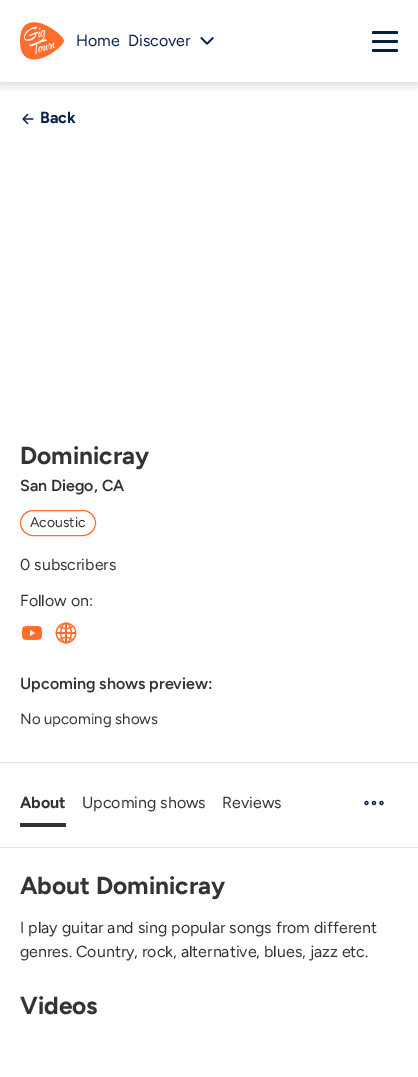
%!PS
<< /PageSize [418 1077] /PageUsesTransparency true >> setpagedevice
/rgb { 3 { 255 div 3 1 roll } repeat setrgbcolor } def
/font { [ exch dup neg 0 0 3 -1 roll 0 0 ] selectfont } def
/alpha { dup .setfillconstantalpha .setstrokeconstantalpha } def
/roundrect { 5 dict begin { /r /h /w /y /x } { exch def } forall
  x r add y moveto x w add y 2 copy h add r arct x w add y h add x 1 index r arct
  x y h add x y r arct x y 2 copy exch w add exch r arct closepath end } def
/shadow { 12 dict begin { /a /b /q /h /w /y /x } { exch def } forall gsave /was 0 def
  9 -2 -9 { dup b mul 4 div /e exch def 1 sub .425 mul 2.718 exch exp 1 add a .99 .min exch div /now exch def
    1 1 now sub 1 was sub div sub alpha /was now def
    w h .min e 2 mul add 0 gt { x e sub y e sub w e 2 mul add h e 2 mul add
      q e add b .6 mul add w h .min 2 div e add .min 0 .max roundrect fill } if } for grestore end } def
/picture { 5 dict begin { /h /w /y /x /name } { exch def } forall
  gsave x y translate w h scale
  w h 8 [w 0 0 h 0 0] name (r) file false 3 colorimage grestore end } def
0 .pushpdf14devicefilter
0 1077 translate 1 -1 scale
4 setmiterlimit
255 255 255 rgb
0 0 418 1077 rectfill
gsave
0 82 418 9 rectclip
0 0 0 rgb
0 2 418 82 0 6 0.16 shadow
grestore
(img/1.rgb) 20 22 44 38 picture
(img/2.rgb) 200 37 14 8 picture
4 32 70 rgb
372 31 26 3 1.5 roundrect fill
372 40 26 3 1.5 roundrect fill
372 49 26 3 1.5 roundrect fill
(img/3.rgb) 22 113 12 12 picture
255 108 44 rgb
20.5 510.5 75 25 12.5 roundrect stroke
(img/4.rgb) 22 626 20 14 picture
(img/5.rgb) 55 622 22 22 picture
[
  [0 762 418 1 226 226 226]
  [0 847 418 1 226 226 226]
  [20 823 46 4 51 51 51]
] { aload pop rgb rectfill } forall
(img/6.rgb) 364 800 20 6 picture
/Figtree-Regular 16 font
4 32 70 rgb
76 46 moveto (Home) show
128 46 moveto (Discover) show
/Figtree-Bold 16 font
40 123 moveto (Back) show
/Figtree-Bold 24.5 font
51 51 51 rgb
20 464 moveto (Dominicray) show
/Figtree-SemiBold 16 font
20 491 moveto (San Diego, CA) show
/Figtree-Regular 14 font
30 527 moveto (Acoustic) show
/Figtree-Regular 16 font
20 570 moveto (0 subscribers) show
20 606 moveto (Follow on:) show
/Figtree-SemiBold 16 font
20 689 moveto (Upcoming shows preview:) show
/Figtree-Regular 15 font
20 724 moveto (No upcoming shows) show
/Figtree-Bold 16 font
20 808 moveto (About) show
/Figtree-Regular 16 font
82 808 moveto (Upcoming shows) show
222 808 moveto (Reviews) show
/Figtree-Bold 24.5 font
20 894 moveto (About Dominicray) show
/Figtree-Regular 16 font
20 933 moveto (I play guitar and sing popular songs from different) show
20 957 moveto (genres. Country, rock, alternative, blues, jazz etc.) show
/Figtree-Bold 24.5 font
20 1014 moveto (Videos) show
.poppdf14devicefilter showpage
